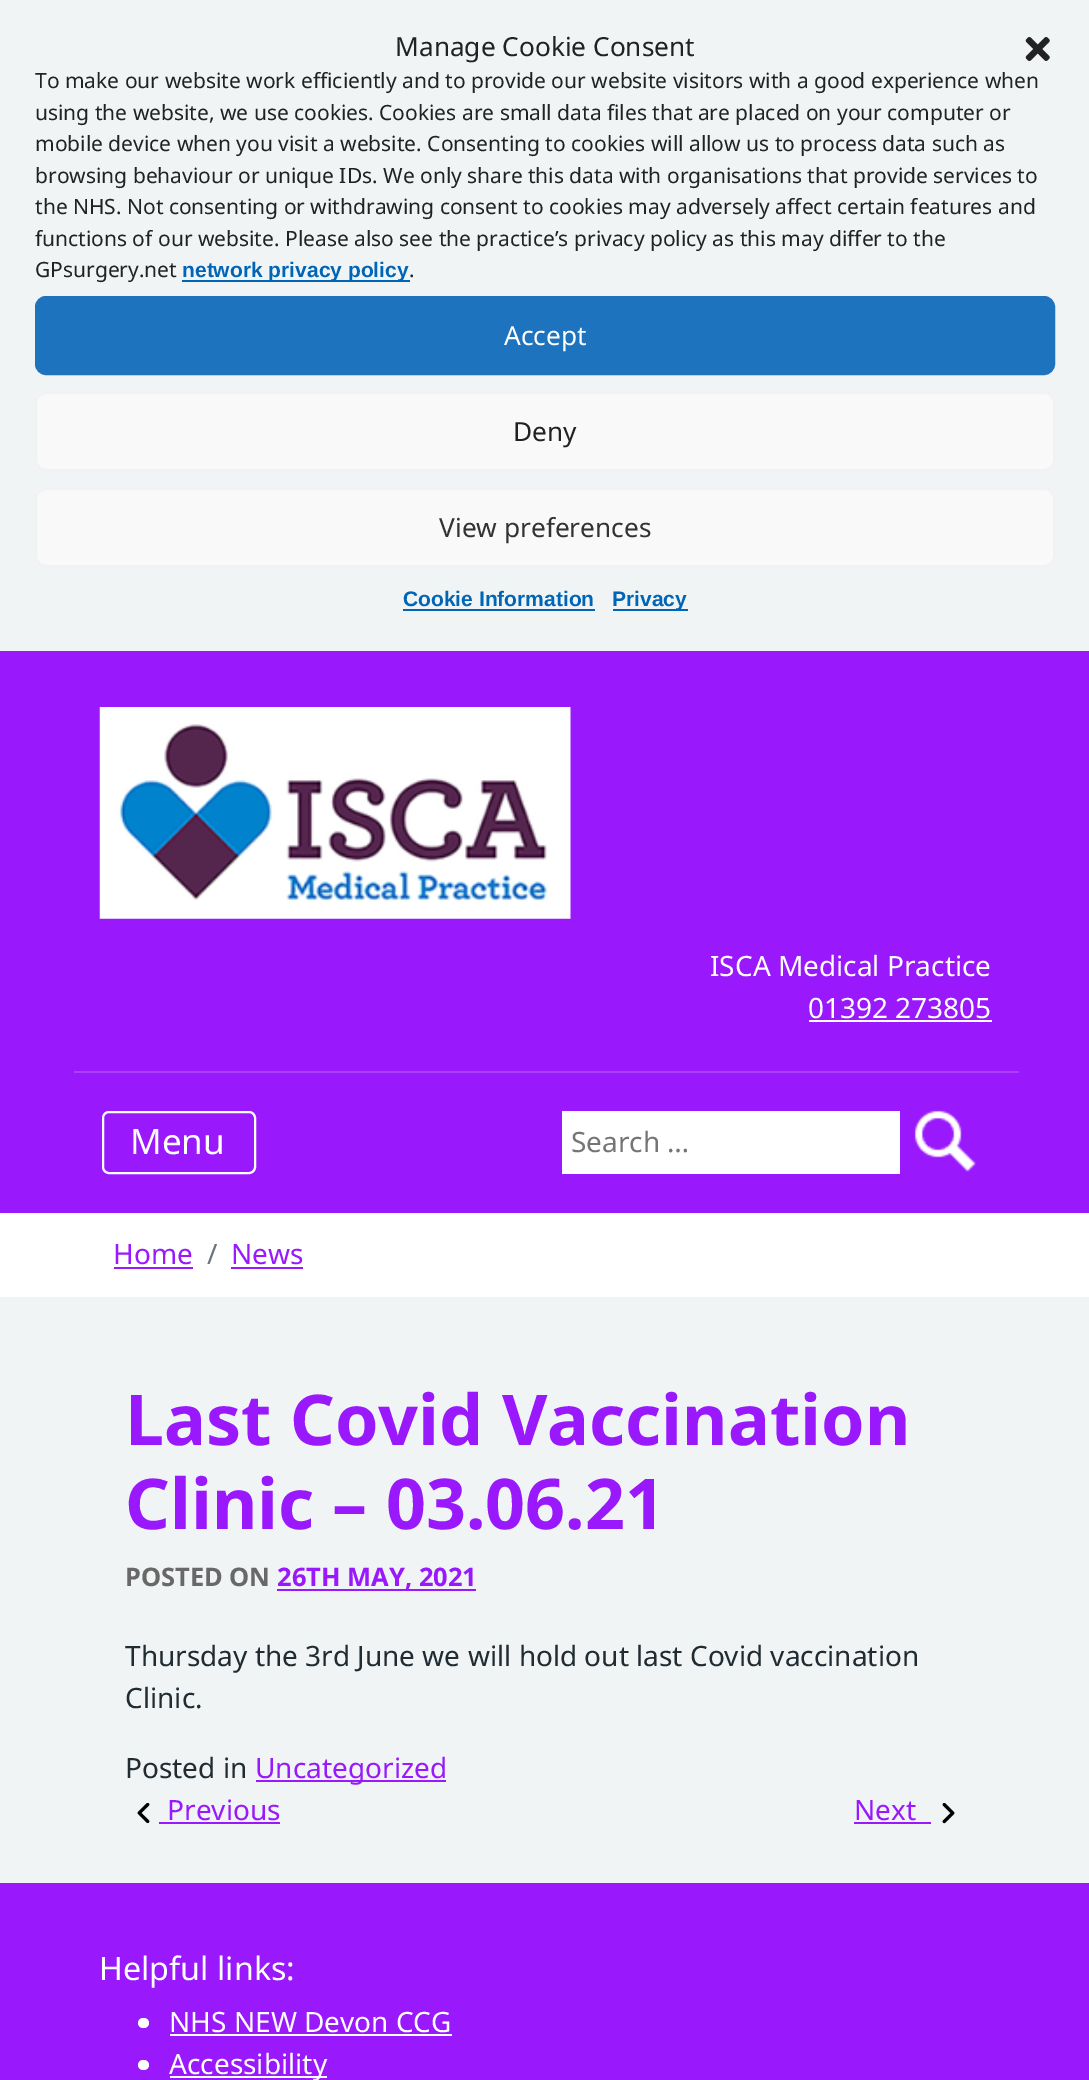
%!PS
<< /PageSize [1089 2080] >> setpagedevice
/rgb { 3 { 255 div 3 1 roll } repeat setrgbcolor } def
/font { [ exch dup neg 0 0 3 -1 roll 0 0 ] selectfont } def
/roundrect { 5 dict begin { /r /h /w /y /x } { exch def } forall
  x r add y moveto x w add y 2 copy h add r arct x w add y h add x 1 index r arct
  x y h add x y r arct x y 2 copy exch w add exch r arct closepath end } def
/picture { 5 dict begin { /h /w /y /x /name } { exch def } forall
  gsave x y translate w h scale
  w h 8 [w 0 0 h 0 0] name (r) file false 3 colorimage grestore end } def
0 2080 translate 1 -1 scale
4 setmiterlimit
240 244 245 rgb
0 0 1089 2080 rectfill
(img/1.rgb) 1025 37 25 24 picture
0 101 183 rgb
182 280 228 2 rectfill
30 115 190 rgb
36 297 1018 77 10 roundrect gsave fill grestore
2 setlinewidth
stroke
249 249 249 rgb
36 393 1018 77 10 roundrect gsave fill grestore
242 242 242 rgb
stroke
249 249 249 rgb
36 489 1018 77 10 roundrect gsave fill grestore
242 242 242 rgb
stroke
[
  [403 609 192 2 0 101 183]
  [613 609 75 2 0 101 183]
  [0 651 1089 562 153 25 252]
  [74 1071 945 2 170 64 253]
] { aload pop rgb rectfill } forall
(img/2.rgb) 99 707 472 212 picture
255 255 255 rgb
809 1020 183 2 rectfill
103 1112 152 61 6 roundrect stroke
562 1111 338 63 rectfill
(img/3.rgb) 914 1110 62 62 picture
[
  [0 1213 1089 84 255 255 255]
  [114 1267 79 2 153 25 252]
  [231 1267 72 2 153 25 252]
  [277 1589 199 2 153 25 252]
  [256 1780 190 2 153 25 252]
] { aload pop rgb rectfill } forall
(img/4.rgb) 137 1803 13 21 picture
159 1822 121 2 rectfill
854 1822 77 2 rectfill
(img/5.rgb) 942 1803 13 21 picture
0 1883 1089 197 rectfill
255 255 255 rgb
138 2018 11 10 5 roundrect fill
170 2034 282 2 rectfill
138 2060 11 10 5 roundrect fill
170 2076 157 2 rectfill
/NotoSans-Regular 26.25 font
34 34 34 rgb
395 56 moveto (Manage Cookie Consent) show
/NotoSans-Regular 21 font
[
  [(To make our website work efficiently and to provide our website visitors with a good experience when) 35 88]
  [(using the website, we use cookies. Cookies are small data files that are placed on your computer or) 35 120]
  [(mobile device when you visit a website. Consenting to cookies will allow us to process data such as) 35 151]
  [(browsing behaviour or unique IDs. We only share this data with organisations that provide services to) 35 183]
  [(the NHS. Not consenting or withdrawing consent to cookies may adversely affect certain features and) 35 214]
  [(functions of our website. Please also see the practice’s privacy policy as this may differ to the) 35 246]
  [(GPsurgery.net) 35 277]
] { aload pop moveto show } forall
/LiberationSans-Bold 21 font
0 101 183 rgb
182 277 moveto (network privacy policy) show
/NotoSans-Regular 21 font
34 34 34 rgb
409 277 moveto (.) show
/NotoSans-Regular 26.25 font
255 255 255 rgb
504 345 moveto (Accept) show
34 34 34 rgb
513 441 moveto (Deny) show
51 51 51 rgb
439 537 moveto (View preferences) show
/LiberationSans-Bold 21 font
0 101 183 rgb
403 606 moveto (Cookie Information) show
612 606 moveto (Privacy) show
/NotoSans-Regular 28 font
255 255 255 rgb
710 976 moveto (ISCA Medical Practice) show
808 1018 moveto (01392 273805) show
/NotoSans-Regular 35 font
130 1154 moveto (Menu) show
/NotoSans-Regular 28 font
117 117 117 rgb
571 1152 moveto (Search …) show
153 25 252 rgb
113 1264 moveto (Home) show
108 117 125 rgb
207 1264 moveto (/) show
153 25 252 rgb
231 1264 moveto (News) show
/NotoSans-Bold 70 font
125 1445 moveto (Last Covid Vaccination) show
125 1529 moveto (Clinic – 03.06.21) show
/NotoSans-Bold 25.5 font
104 104 104 rgb
125 1586 moveto (POSTED ON) show
153 25 252 rgb
277 1586 moveto (26TH MAY, 2021) show
/NotoSans-Regular 28 font
33 43 50 rgb
[
  [(Thursday the 3rd June we will hold out last Covid vaccination) 125 1666]
  [(Clinic.) 125 1708]
  [(Posted in) 125 1778]
] { aload pop moveto show } forall
153 25 252 rgb
[
  [(Uncategorized) 255 1778]
  [(Previous) 167 1820]
  [(Next) 854 1820]
] { aload pop moveto show } forall
/NotoSans-Regular 32.25 font
255 255 255 rgb
99 1980 moveto (Helpful links:) show
/NotoSans-Regular 28 font
169 2032 moveto (NHS NEW Devon CCG) show
169 2074 moveto (Accessibility) show
showpage
